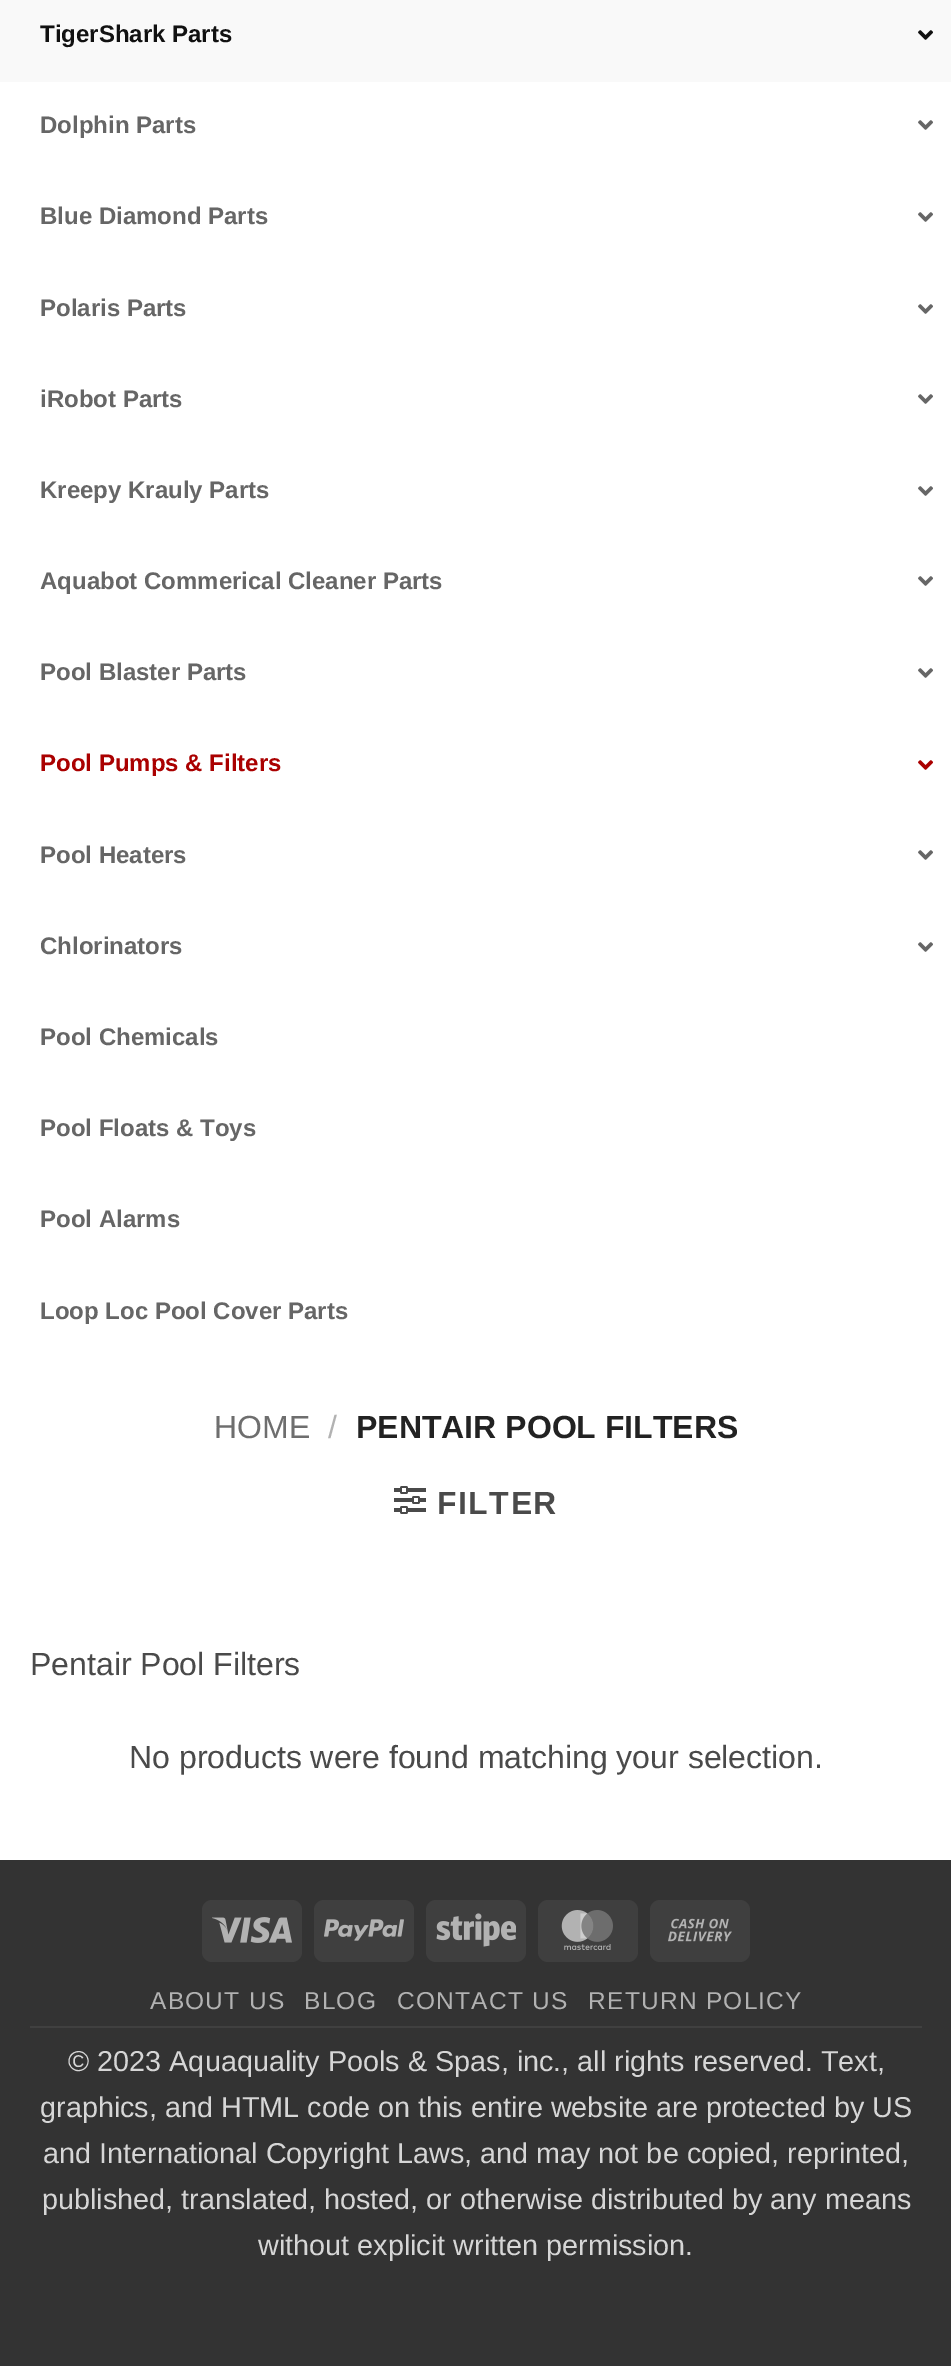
%!PS
<< /PageSize [951 2366] >> setpagedevice
/rgb { 3 { 255 div 3 1 roll } repeat setrgbcolor } def
/font { [ exch dup neg 0 0 3 -1 roll 0 0 ] selectfont } def
/roundrect { 5 dict begin { /r /h /w /y /x } { exch def } forall
  x r add y moveto x w add y 2 copy h add r arct x w add y h add x 1 index r arct
  x y h add x y r arct x y 2 copy exch w add exch r arct closepath end } def
/picture { 5 dict begin { /h /w /y /x /name } { exch def } forall
  gsave x y translate w h scale
  w h 8 [w 0 0 h 0 0] name (r) file false 3 colorimage grestore end } def
0 2366 translate 1 -1 scale
4 setmiterlimit
51 51 51 rgb
0 0 951 2366 rectfill
255 255 255 rgb
0 82 951 1778 rectfill
249 249 249 rgb
0 0 951 82 rectfill
(img/1.rgb) 918 30 15 10 picture
(img/2.rgb) 918 120 15 10 picture
(img/2.rgb) 918 212 15 10 picture
(img/2.rgb) 918 304 15 10 picture
(img/2.rgb) 918 394 15 10 picture
(img/2.rgb) 918 486 15 10 picture
(img/2.rgb) 918 576 15 10 picture
(img/2.rgb) 918 668 15 10 picture
(img/3.rgb) 918 760 15 10 picture
(img/2.rgb) 918 850 15 10 picture
(img/2.rgb) 918 942 15 10 picture
(img/4.rgb) 394 1486 32 28 picture
63 63 63 rgb
202 1900 100 62 10 roundrect fill
(img/5.rgb) 212 1917 80 26 picture
314 1900 100 62 10 roundrect fill
(img/6.rgb) 324 1919 80 22 picture
426 1900 100 62 10 roundrect fill
(img/7.rgb) 436 1913 80 34 picture
538 1900 100 62 10 roundrect fill
(img/8.rgb) 561 1910 52 40 picture
650 1900 100 62 10 roundrect fill
(img/9.rgb) 668 1918 64 24 picture
64 64 64 rgb
30 2026 892 2 rectfill
/LiberationSans-Bold 24 font
17 17 17 rgb
40 42 moveto (TigerShark Parts) show
102 102 102 rgb
[
  [(Dolphin Parts) 40 133]
  [(Blue Diamond Parts) 40 224]
  [(Polaris Parts) 40 316]
  [(iRobot Parts) 40 407]
  [(Kreepy Krauly Parts) 40 498]
  [(Aquabot Commerical Cleaner Parts) 40 589]
  [(Pool Blaster Parts) 40 680]
] { aload pop moveto show } forall
170 0 0 rgb
40 771 moveto (Pool Pumps & Filters) show
102 102 102 rgb
[
  [(Pool Heaters) 40 863]
  [(Chlorinators) 40 954]
  [(Pool Chemicals) 40 1045]
  [(Pool Floats & Toys) 40 1136]
  [(Pool Alarms) 40 1227]
  [(Loop Loc Pool Cover Parts) 40 1319]
] { aload pop moveto show } forall
/LiberationSans-Regular 32 font
110 110 110 rgb
214 1438 moveto (HOME) show
178 178 178 rgb
328 1438 moveto (/) show
/LiberationSans-Bold 32 font
34 34 34 rgb
356 1438 moveto (PENTAIR POOL FILTERS) show
74 74 74 rgb
437 1514 moveto 1.5 0 (FILTER) ashow
/LiberationSans-Regular 32 font
30 1675 moveto (Pentair Pool Filters) show
129 1768 moveto (No products were found matching your selection.) show
/LiberationSans-Regular 24.5 font
178 178 178 rgb
150 2009 moveto 1.25 0 (ABOUT US) ashow
304 2009 moveto 1.25 0 (BLOG) ashow
397 2009 moveto 1.25 0 (CONTACT US) ashow
588 2009 moveto 1.25 0 (RETURN POLICY) ashow
/LiberationSans-Regular 28.8 font
214 214 214 rgb
[
  [(© 2023 Aquaquality Pools & Spas, inc., all rights reserved. Text,) 68 2071]
  [(graphics, and HTML code on this entire website are protected by US) 40 2117]
  [(and International Copyright Laws, and may not be copied, reprinted,) 43 2163]
  [(published, translated, hosted, or otherwise distributed by any means) 42 2209]
  [(without explicit written permission.) 258 2255]
] { aload pop moveto show } forall
showpage
